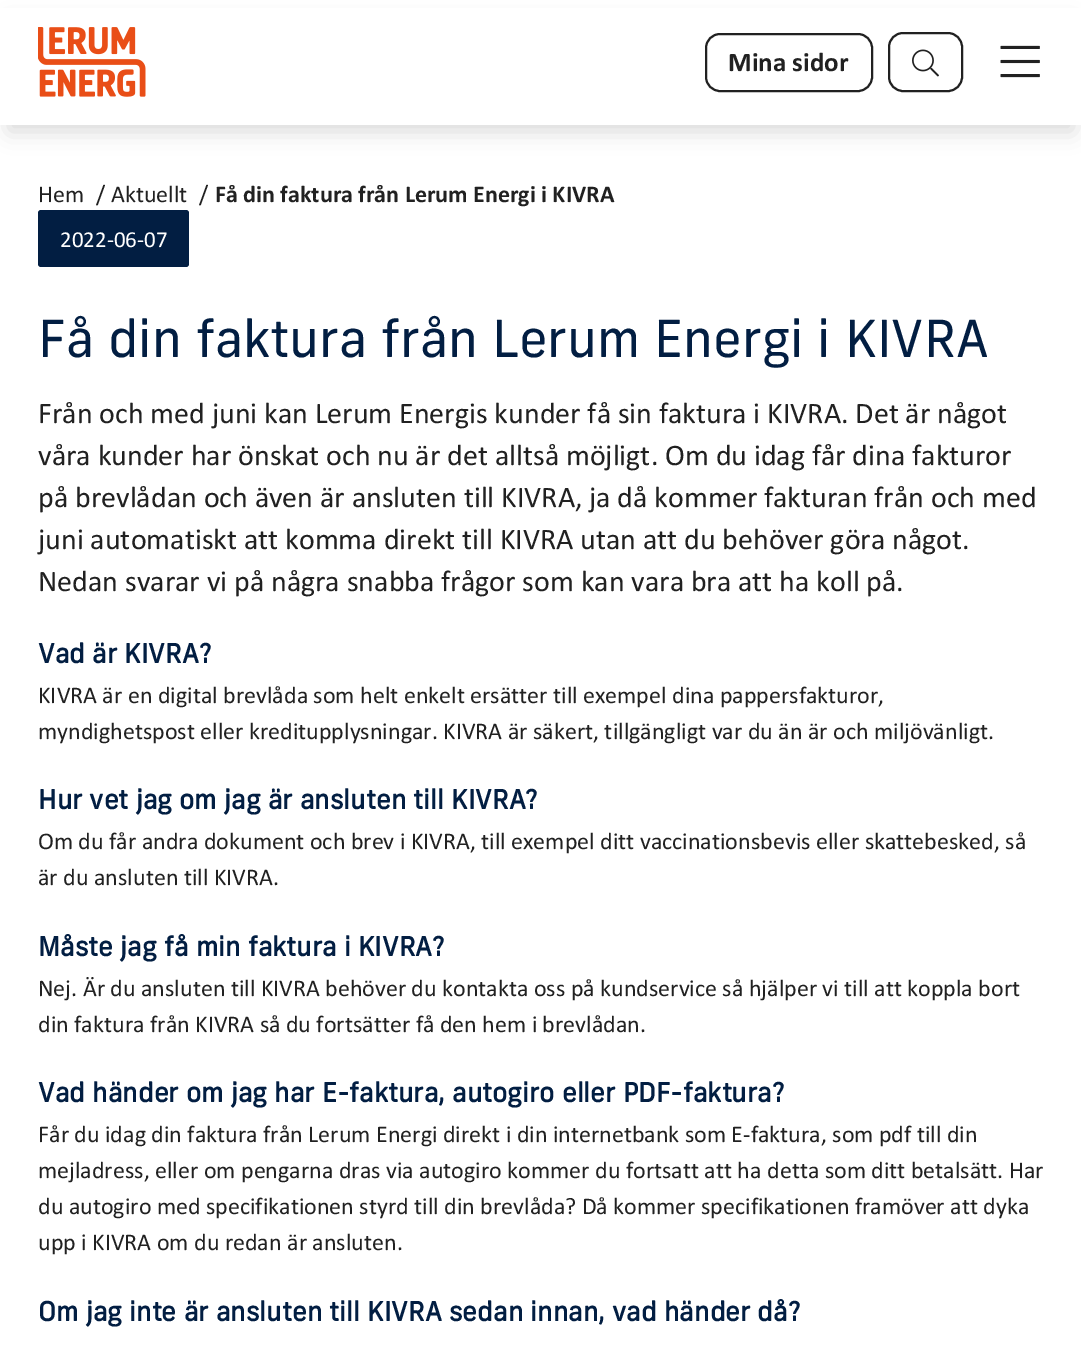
%!PS
<< /PageSize [1081 1350] /PageUsesTransparency true >> setpagedevice
/rgb { 3 { 255 div 3 1 roll } repeat setrgbcolor } def
/font { [ exch dup neg 0 0 3 -1 roll 0 0 ] selectfont } def
/alpha { dup .setfillconstantalpha .setstrokeconstantalpha } def
/roundrect { 5 dict begin { /r /h /w /y /x } { exch def } forall
  x r add y moveto x w add y 2 copy h add r arct x w add y h add x 1 index r arct
  x y h add x y r arct x y 2 copy exch w add exch r arct closepath end } def
/shadow { 12 dict begin { /a /b /q /h /w /y /x } { exch def } forall gsave /was 0 def
  9 -2 -9 { dup b mul 4 div /e exch def 1 sub .425 mul 2.718 exch exp 1 add a .99 .min exch div /now exch def
    1 1 now sub 1 was sub div sub alpha /was now def
    w h .min e 2 mul add 0 gt { x e sub y e sub w e 2 mul add h e 2 mul add
      q e add b .6 mul add w h .min 2 div e add .min 0 .max roundrect fill } if } for grestore end } def
/picture { 5 dict begin { /h /w /y /x /name } { exch def } forall
  gsave x y translate w h scale
  w h 8 [w 0 0 h 0 0] name (r) file false 3 colorimage grestore end } def
0 .pushpdf14devicefilter
0 1350 translate 1 -1 scale
4 setmiterlimit
255 255 255 rgb
0 0 1081 1350 rectfill
0 0 0 rgb
9 24 1064 107 0 11 0.15 shadow
255 255 255 rgb
0 8 1081 117 rectfill
(img/1.rgb) 38 27 108 70 picture
33 33 33 rgb
2 setlinewidth
706 34 166 57 14 roundrect stroke
889 33 73 58 14 roundrect stroke
(img/2.rgb) 912 49 27 28 picture
(img/3.rgb) 1000 45 40 33 picture
2 30 66 rgb
38 210 151 57 3 roundrect fill
/Calibri-Bold 27 font
33 33 33 rgb
728 71 moveto (Mina sidor) show
/Calibri-Regular 24 font
[
  [(Hem) 38 202]
  [(/) 96 202]
  [(Aktuellt) 111 202]
  [(/) 199 202]
] { aload pop moveto show } forall
/Calibri-Bold 24 font
215 202 moveto (Få din faktura från Lerum Energi i KIVRA) show
/Calibri-Regular 23 font
255 255 255 rgb
60 247 moveto (2022-06-07) show
/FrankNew-Regular 51 font
2 30 66 rgb
38 357 moveto (Få din faktura från Lerum Energi i KIVRA) show
/Calibri-Regular 30 font
33 33 33 rgb
[
  [(Från och med juni kan Lerum Energis kunder få sin faktura i KIVRA. Det är något) 38 423]
  [(våra kunder har önskat och nu är det alltså möjligt. Om du idag får dina fakturor) 38 465]
  [(på brevlådan och även är ansluten till KIVRA, ja då kommer fakturan från och med) 38 507]
  [(juni automatiskt att komma direkt till KIVRA utan att du behöver göra något.) 38 549]
  [(Nedan svarar vi på några snabba frågor som kan vara bra att ha koll på.) 38 591]
] { aload pop moveto show } forall
/FrankNew-Bold 26.4 font
2 30 66 rgb
38 663 moveto (Vad är KIVRA?) show
/Calibri-Regular 24 font
33 33 33 rgb
38 703 moveto (KIVRA är en digital brevlåda som helt enkelt ersätter till exempel dina pappersfakturor,) show
38 739 moveto (myndighetspost eller kreditupplysningar. KIVRA är säkert, tillgängligt var du än är och miljövänligt.) show
/FrankNew-Bold 26.4 font
2 30 66 rgb
38 809 moveto (Hur vet jag om jag är ansluten till KIVRA?) show
/Calibri-Regular 24 font
33 33 33 rgb
38 849 moveto (Om du får andra dokument och brev i KIVRA, till exempel ditt vaccinationsbevis eller skattebesked, så) show
38 885 moveto (är du ansluten till KIVRA.) show
/FrankNew-Bold 26.4 font
2 30 66 rgb
38 956 moveto (Måste jag få min faktura i KIVRA?) show
/Calibri-Regular 24 font
33 33 33 rgb
38 996 moveto (Nej. Är du ansluten till KIVRA behöver du kontakta oss på kundservice så hjälper vi till att koppla bort) show
38 1032 moveto (din faktura från KIVRA så du fortsätter få den hem i brevlådan.) show
/FrankNew-Bold 26.4 font
2 30 66 rgb
38 1102 moveto (Vad händer om jag har E-faktura, autogiro eller PDF-faktura?) show
/Calibri-Regular 24 font
33 33 33 rgb
[
  [(Får du idag din faktura från Lerum Energi direkt i din internetbank som E-faktura, som pdf till din) 38 1142]
  [(mejladress, eller om pengarna dras via autogiro kommer du fortsatt att ha detta som ditt betalsätt. Har) 38 1178]
  [(du autogiro med specifikationen styrd till din brevlåda? Då kommer specifikationen framöver att dyka) 38 1214]
  [(upp i KIVRA om du redan är ansluten.) 38 1250]
] { aload pop moveto show } forall
/FrankNew-Bold 26.4 font
2 30 66 rgb
38 1321 moveto (Om jag inte är ansluten till KIVRA sedan innan, vad händer då?) show
.poppdf14devicefilter showpage
